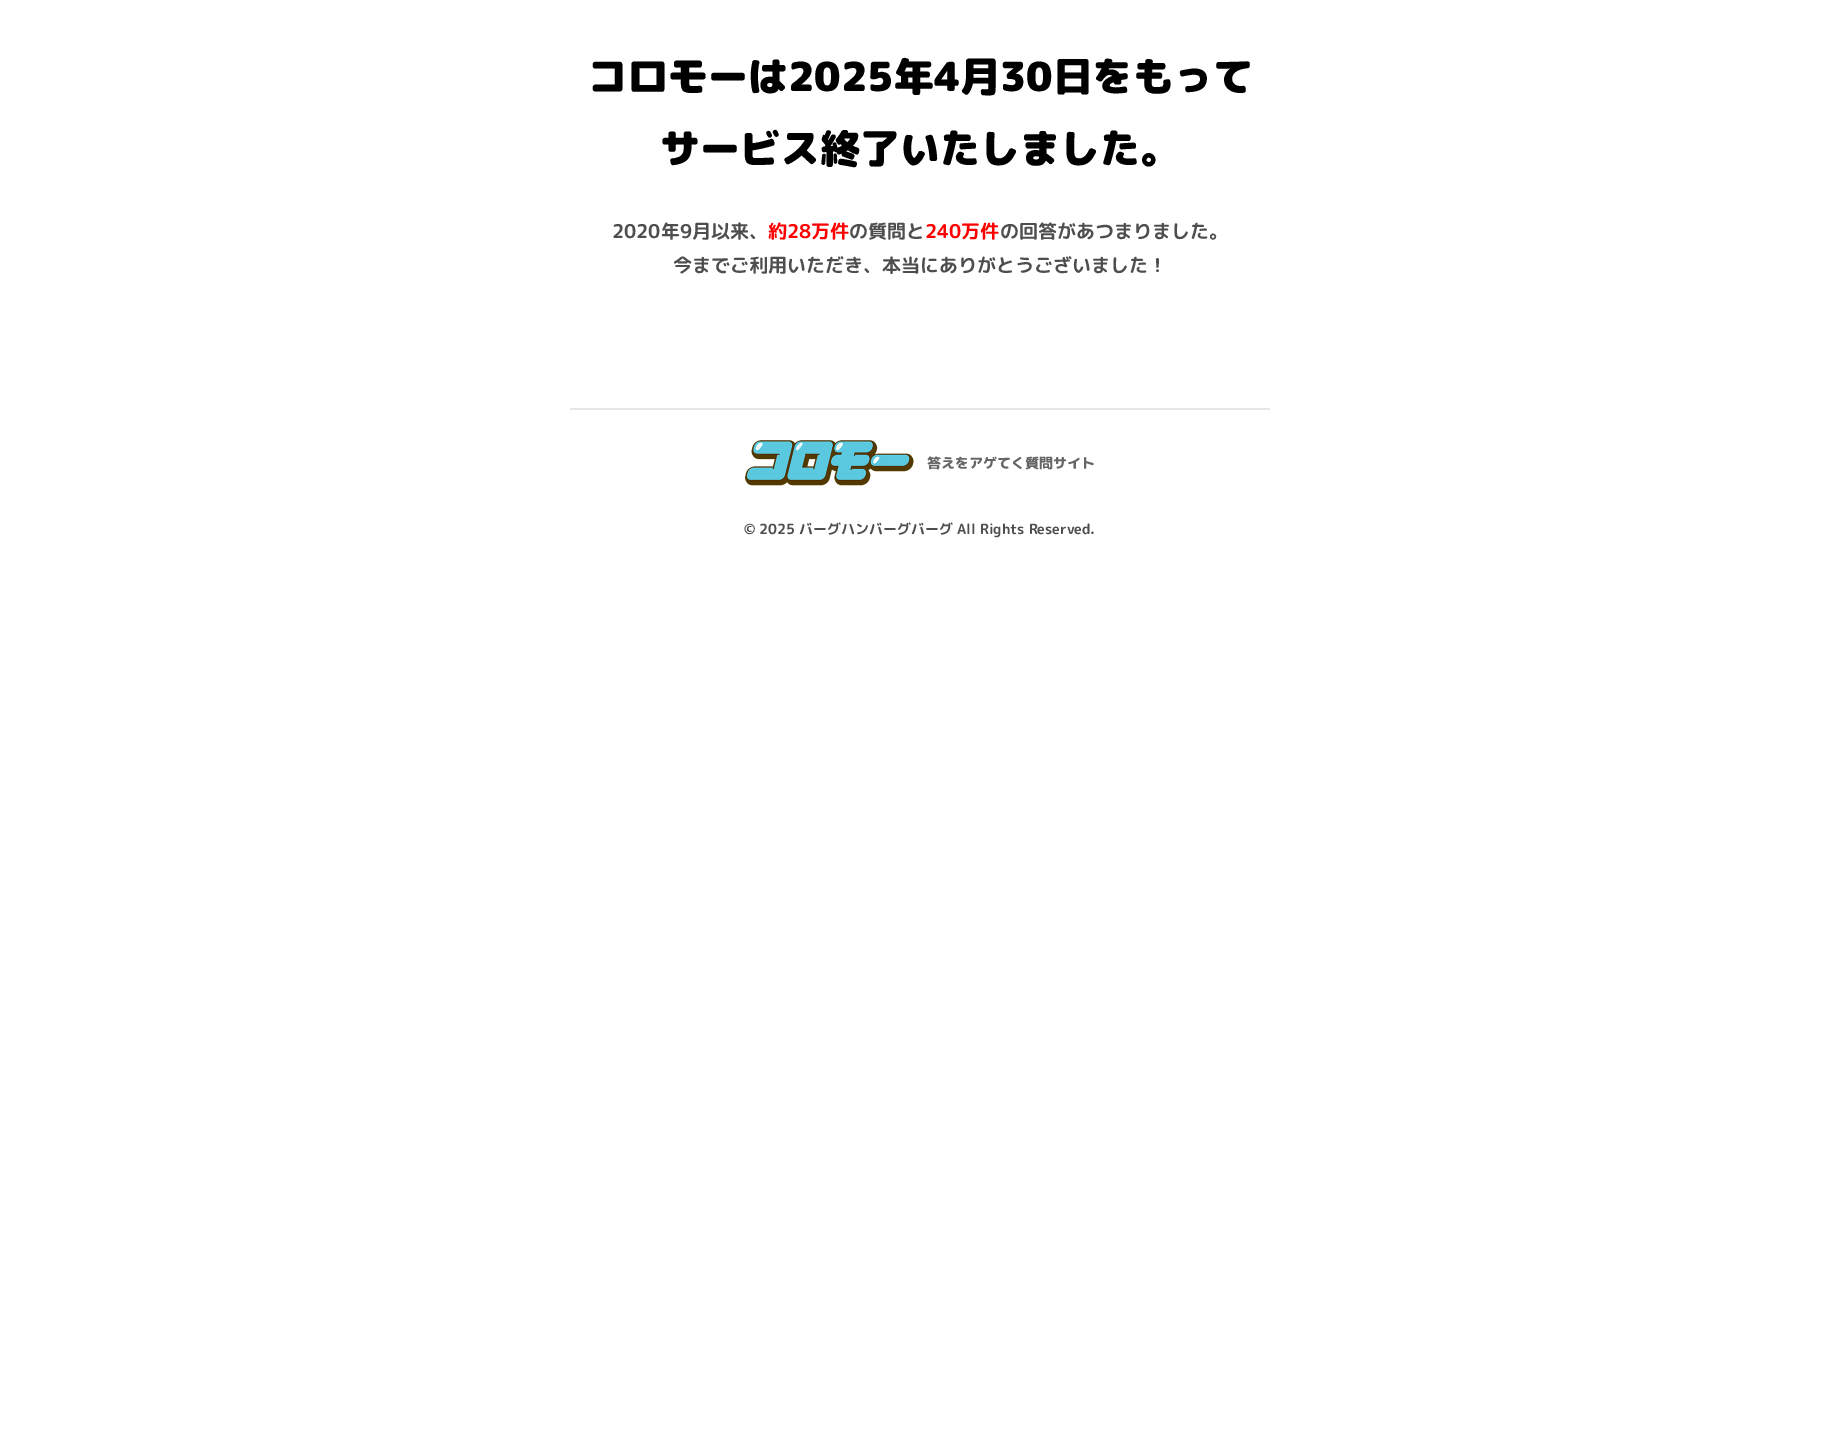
%!PS
<< /PageSize [1840 1451] >> setpagedevice
/rgb { 3 { 255 div 3 1 roll } repeat setrgbcolor } def
/font { [ exch dup neg 0 0 3 -1 roll 0 0 ] selectfont } def
/picture { 5 dict begin { /h /w /y /x /name } { exch def } forall
  gsave x y translate w h scale
  w h 8 [w 0 0 h 0 0] name (r) file false 3 colorimage grestore end } def
0 1451 translate 1 -1 scale
4 setmiterlimit
255 255 255 rgb
0 0 1840 1451 rectfill
230 230 230 rgb
570 408 700 2 rectfill
(img/1.rgb) 745 440 169 46 picture
/RoundedMplus1c-Black 40 font
0 0 0 rgb
588 91 moveto (コロモーは2025年4月30日をもって) show
660 163 moveto (サービス終了いたしました。) show
/RoundedMplus1cBold-Bold 19 font
78 78 78 rgb
612 238 moveto (2020年9月以来、) show
255 0 0 rgb
768 238 moveto (約28万件) show
78 78 78 rgb
849 238 moveto (の質問と) show
255 0 0 rgb
925 238 moveto (240万件) show
78 78 78 rgb
1000 238 moveto (の回答があつまりました。) show
673 272 moveto (今までご利用いただき、本当にありがとうございました！) show
/RoundedMplus1c-ExtraBold 14 font
102 102 102 rgb
927 468 moveto (答えをアゲてく質問サイト) show
/RoundedMplus1cBold-Bold 14 font
78 78 78 rgb
744 534 moveto (© 2025 バーグハンバーグバーグ All Rights Reserved.) show
showpage
